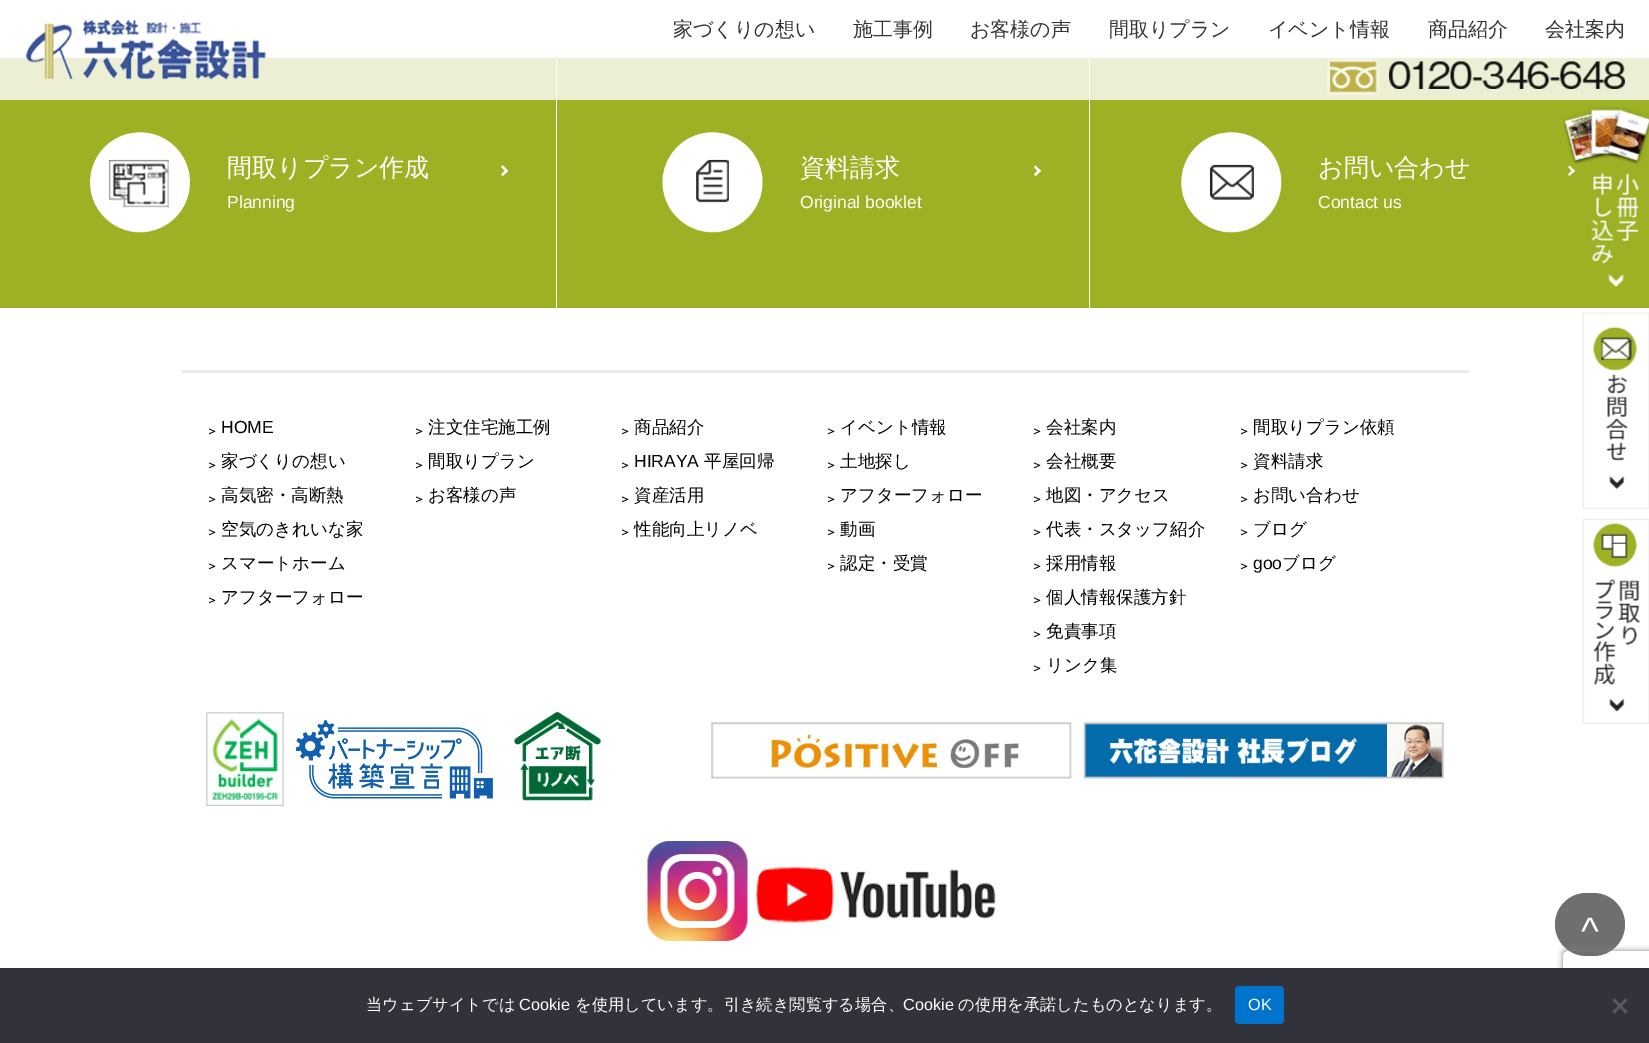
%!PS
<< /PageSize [1649 1043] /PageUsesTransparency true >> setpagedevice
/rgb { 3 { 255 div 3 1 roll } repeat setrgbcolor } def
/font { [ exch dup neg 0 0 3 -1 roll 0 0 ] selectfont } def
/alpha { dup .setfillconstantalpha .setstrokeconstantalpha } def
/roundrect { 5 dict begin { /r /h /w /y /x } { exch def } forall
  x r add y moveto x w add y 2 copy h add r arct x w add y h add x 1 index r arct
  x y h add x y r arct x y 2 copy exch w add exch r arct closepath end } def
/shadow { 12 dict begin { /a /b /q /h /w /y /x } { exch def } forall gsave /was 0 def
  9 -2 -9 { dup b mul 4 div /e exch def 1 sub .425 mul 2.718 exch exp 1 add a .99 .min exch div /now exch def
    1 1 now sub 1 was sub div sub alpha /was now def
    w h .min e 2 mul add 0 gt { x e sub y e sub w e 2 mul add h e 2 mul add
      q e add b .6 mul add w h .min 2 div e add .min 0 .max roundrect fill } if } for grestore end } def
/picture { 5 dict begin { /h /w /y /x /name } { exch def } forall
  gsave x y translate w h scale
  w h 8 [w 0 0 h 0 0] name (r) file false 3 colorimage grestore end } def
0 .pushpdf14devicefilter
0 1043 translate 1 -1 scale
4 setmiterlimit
255 255 255 rgb
0 0 1649 1043 rectfill
236 239 211 rgb
0 58 1649 42 rectfill
(img/1.rgb) 25 19 242 61 picture
(img/2.rgb) 1326 58 299 38 picture
158 177 36 rgb
0 100 1649 208 rectfill
255 255 255 rgb
556 58 1 250 rectfill
(img/3.rgb) 90 132 100 101 picture
503 165.5 moveto 508 171 lineto 506.5 172.5 lineto 501 167 lineto closepath fill
506.5 169 moveto 508 171 lineto 503 176 lineto 501 174.5 lineto closepath fill
1089 58 1 250 rectfill
(img/4.rgb) 662 132 101 101 picture
1035.5 165.5 moveto 1041 171 lineto 1039 172.5 lineto 1034 167 lineto closepath fill
1039 169 moveto 1041 171 lineto 1035.5 176 lineto 1034 174.5 lineto closepath fill
(img/5.rgb) 1181 132 101 101 picture
1569.5 165.5 moveto 1575 171 lineto 1573 172.5 lineto 1568 167 lineto closepath fill
1573 169 moveto 1575 171 lineto 1569.5 176 lineto 1568 174.5 lineto closepath fill
(img/6.rgb) 1563 107 86 180 picture
(img/7.rgb) 1582 312 67 197 picture
(img/8.rgb) 1582 518 67 206 picture
235 235 235 rgb
181 370 1288 3 rectfill
(img/9.rgb) 206 712 78 94 picture
(img/10.rgb) 295 720 198 79 picture
(img/11.rgb) 513 711 89 90 picture
(img/12.rgb) 711 722 361 57 picture
(img/13.rgb) 1083 722 361 57 picture
(img/14.rgb) 647 841 101 100 picture
(img/15.rgb) 756 867 240 56 picture
111 111 111 rgb
1555 893 70 63 31.5 roundrect fill
gsave
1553 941 moveto 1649 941 lineto 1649 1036 lineto 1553 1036 lineto closepath 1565.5 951 moveto 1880.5 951 lineto 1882 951 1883 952 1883 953.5 curveto 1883 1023.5 lineto 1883 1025 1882 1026 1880.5 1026 curveto 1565.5 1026 lineto 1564 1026 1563 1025 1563 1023.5 curveto 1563 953.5 lineto 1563 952 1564 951 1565.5 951 curveto closepath eoclip newpath
128 128 128 rgb
1563 951 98 75 2.5 3 1 shadow
grestore
50 50 58 rgb
0 968 1649 75 rectfill
0 115 204 rgb
1235 986 49 38 4 roundrect fill
89 89 93 rgb
1625.5 998.5 moveto 1627.5 1000 lineto 1614.5 1013.5 lineto 1612.5 1011.5 lineto closepath fill
1612.5 1000 moveto 1614.5 998.5 lineto 1627.5 1011.5 lineto 1625.5 1013.5 lineto closepath fill
/WenQuanYiZenHei-Medium 20 font
51 51 51 rgb
[
  [(家づくりの想い) 673 36]
  [(施工事例) 853 36]
  [(お客様の声) 970 36]
  [(間取りプラン) 1109 36]
  [(イベント情報) 1268 36]
  [(商品紹介) 1428 36]
  [(会社案内) 1545 36]
] { aload pop moveto show } forall
/WenQuanYiZenHei-Medium 25 font
255 255 255 rgb
227 176 moveto (間取りプラン作成) show
/LiberationSans-Regular 17.5 font
227 208 moveto (Planning) show
/WenQuanYiZenHei-Medium 25 font
800 176 moveto (資料請求) show
/LiberationSans-Regular 17.5 font
800 208 moveto (Original booklet) show
/WenQuanYiZenHei-Medium 25 font
1318 176 moveto (お問い合わせ) show
/LiberationSans-Regular 17.5 font
1318 208 moveto (Contact us) show
/WenQuanYiZenHei-Bold 12 font
0 0 0 rgb
206 435 moveto (＞) show
/LiberationSans-Regular 17.5 font
221 433 moveto (HOME) show
/WenQuanYiZenHei-Bold 12 font
206 469 moveto (＞) show
/WenQuanYiZenHei-Medium 17.5 font
221 467 moveto (家づくりの想い) show
/WenQuanYiZenHei-Bold 12 font
206 503 moveto (＞) show
/WenQuanYiZenHei-Medium 17.5 font
221 501 moveto (高気密・高断熱) show
/WenQuanYiZenHei-Bold 12 font
206 536 moveto (＞) show
/WenQuanYiZenHei-Medium 17.5 font
221 535 moveto (空気のきれいな家) show
/WenQuanYiZenHei-Bold 12 font
206 570 moveto (＞) show
/WenQuanYiZenHei-Medium 17.5 font
221 569 moveto (スマートホーム) show
/WenQuanYiZenHei-Bold 12 font
206 604 moveto (＞) show
/WenQuanYiZenHei-Medium 17.5 font
221 603 moveto (アフターフォロー) show
/WenQuanYiZenHei-Bold 12 font
413 435 moveto (＞) show
/WenQuanYiZenHei-Medium 17.5 font
428 433 moveto (注文住宅施工例) show
/WenQuanYiZenHei-Bold 12 font
413 469 moveto (＞) show
/WenQuanYiZenHei-Medium 17.5 font
428 467 moveto (間取りプラン) show
/WenQuanYiZenHei-Bold 12 font
413 503 moveto (＞) show
/WenQuanYiZenHei-Medium 17.5 font
428 501 moveto (お客様の声) show
/WenQuanYiZenHei-Bold 12 font
619 435 moveto (＞) show
/WenQuanYiZenHei-Medium 17.5 font
634 433 moveto (商品紹介) show
/WenQuanYiZenHei-Bold 12 font
619 469 moveto (＞) show
/LiberationSans-Regular 17.5 font
634 467 moveto (HIRAYA) show
/WenQuanYiZenHei-Medium 17.5 font
704 467 moveto (平屋回帰) show
/WenQuanYiZenHei-Bold 12 font
619 503 moveto (＞) show
/WenQuanYiZenHei-Medium 17.5 font
634 501 moveto (資産活用) show
/WenQuanYiZenHei-Bold 12 font
619 536 moveto (＞) show
/WenQuanYiZenHei-Medium 17.5 font
634 535 moveto (性能向上リノベ) show
/WenQuanYiZenHei-Bold 12 font
825 435 moveto (＞) show
/WenQuanYiZenHei-Medium 17.5 font
840 433 moveto (イベント情報) show
/WenQuanYiZenHei-Bold 12 font
825 469 moveto (＞) show
/WenQuanYiZenHei-Medium 17.5 font
840 467 moveto (土地探し) show
/WenQuanYiZenHei-Bold 12 font
825 503 moveto (＞) show
/WenQuanYiZenHei-Medium 17.5 font
840 501 moveto (アフターフォロー) show
/WenQuanYiZenHei-Bold 12 font
825 536 moveto (＞) show
/WenQuanYiZenHei-Medium 17.5 font
840 535 moveto (動画) show
/WenQuanYiZenHei-Bold 12 font
825 570 moveto (＞) show
/WenQuanYiZenHei-Medium 17.5 font
840 569 moveto (認定・受賞) show
/WenQuanYiZenHei-Bold 12 font
1031 435 moveto (＞) show
/WenQuanYiZenHei-Medium 17.5 font
1046 433 moveto (会社案内) show
/WenQuanYiZenHei-Bold 12 font
1031 469 moveto (＞) show
/WenQuanYiZenHei-Medium 17.5 font
1046 467 moveto (会社概要) show
/WenQuanYiZenHei-Bold 12 font
1031 503 moveto (＞) show
/WenQuanYiZenHei-Medium 17.5 font
1046 501 moveto (地図・アクセス) show
/WenQuanYiZenHei-Bold 12 font
1031 536 moveto (＞) show
/WenQuanYiZenHei-Medium 17.5 font
1046 535 moveto (代表・スタッフ紹介) show
/WenQuanYiZenHei-Bold 12 font
1031 570 moveto (＞) show
/WenQuanYiZenHei-Medium 17.5 font
1046 569 moveto (採用情報) show
/WenQuanYiZenHei-Bold 12 font
1031 604 moveto (＞) show
/WenQuanYiZenHei-Medium 17.5 font
1046 603 moveto (個人情報保護方針) show
/WenQuanYiZenHei-Bold 12 font
1031 638 moveto (＞) show
/WenQuanYiZenHei-Medium 17.5 font
1046 637 moveto (免責事項) show
/WenQuanYiZenHei-Bold 12 font
1031 672 moveto (＞) show
/WenQuanYiZenHei-Medium 17.5 font
1046 671 moveto (リンク集) show
/WenQuanYiZenHei-Bold 12 font
1238 435 moveto (＞) show
/WenQuanYiZenHei-Medium 17.5 font
1253 433 moveto (間取りプラン依頼) show
/WenQuanYiZenHei-Bold 12 font
1238 469 moveto (＞) show
/WenQuanYiZenHei-Medium 17.5 font
1253 467 moveto (資料請求) show
/WenQuanYiZenHei-Bold 12 font
1238 503 moveto (＞) show
/WenQuanYiZenHei-Medium 17.5 font
1253 501 moveto (お問い合わせ) show
/WenQuanYiZenHei-Bold 12 font
1238 536 moveto (＞) show
/WenQuanYiZenHei-Medium 17.5 font
1253 535 moveto (ブログ) show
/WenQuanYiZenHei-Bold 12 font
1238 570 moveto (＞) show
/LiberationSans-Regular 17.5 font
1253 569 moveto (goo) show
/WenQuanYiZenHei-Medium 17.5 font
1282 569 moveto (ブログ) show
/LiberationSans-Regular 38 font
255 255 255 rgb
1581 944 moveto (^) show
/WenQuanYiZenHei-Medium 16.25 font
366 1010 moveto (当ウェブサイトでは) show
/LiberationSans-Regular 16.25 font
519 1010 moveto (Cookie) show
/WenQuanYiZenHei-Medium 16.25 font
575 1010 moveto (を使用しています。引き続き閲覧する場合、) show
/LiberationSans-Regular 16.25 font
903 1010 moveto (Cookie) show
/WenQuanYiZenHei-Medium 16.25 font
958 1010 moveto (の使用を承諾したものとなります。) show
/LiberationSans-Regular 16.25 font
1248 1010 moveto (OK) show
.poppdf14devicefilter showpage
